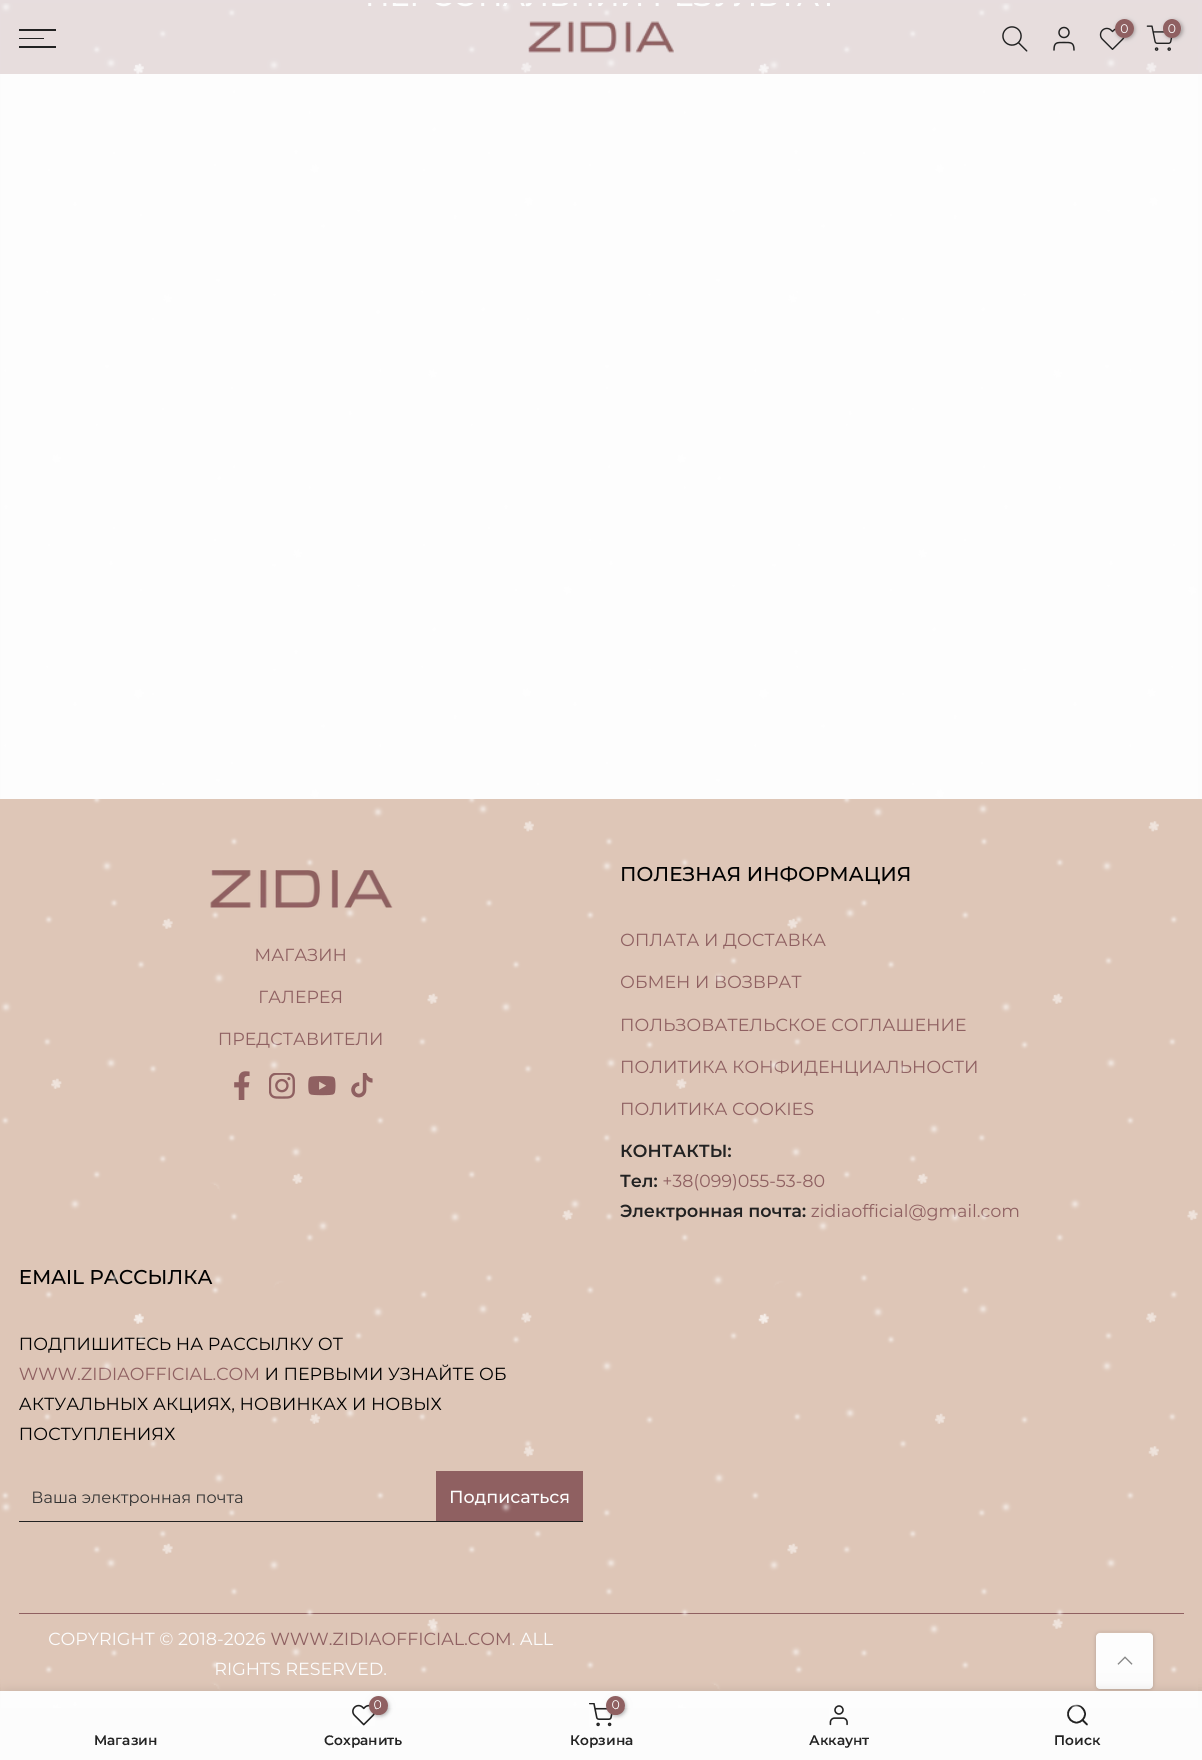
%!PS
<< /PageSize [1202 1760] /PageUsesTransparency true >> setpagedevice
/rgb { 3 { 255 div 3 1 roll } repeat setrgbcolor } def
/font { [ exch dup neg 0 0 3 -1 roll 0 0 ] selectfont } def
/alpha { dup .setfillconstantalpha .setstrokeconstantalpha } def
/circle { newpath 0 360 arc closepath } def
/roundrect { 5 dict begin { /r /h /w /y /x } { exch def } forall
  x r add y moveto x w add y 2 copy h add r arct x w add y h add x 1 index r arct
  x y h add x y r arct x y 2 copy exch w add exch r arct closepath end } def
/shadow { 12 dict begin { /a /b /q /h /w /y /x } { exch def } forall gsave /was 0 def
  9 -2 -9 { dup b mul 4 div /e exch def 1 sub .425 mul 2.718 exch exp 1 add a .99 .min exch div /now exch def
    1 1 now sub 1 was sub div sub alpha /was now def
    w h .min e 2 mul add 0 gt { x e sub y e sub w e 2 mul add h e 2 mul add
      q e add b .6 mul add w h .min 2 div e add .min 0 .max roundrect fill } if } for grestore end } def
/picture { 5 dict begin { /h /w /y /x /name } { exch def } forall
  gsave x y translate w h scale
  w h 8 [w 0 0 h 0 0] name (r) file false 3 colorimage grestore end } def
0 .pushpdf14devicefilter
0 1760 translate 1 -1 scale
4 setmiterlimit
252 252 252 rgb
0 0 1202 1760 rectfill
[
  [0 0 1202 74 231 221 222]
  [19 29 37 2 34 34 34]
  [19 38 25 1 34 34 34]
  [19 46 37 2 34 34 34]
] { aload pop rgb rectfill } forall
(img/2.rgb) 528 21 146 32 picture
(img/3.rgb) 1002 26 26 26 picture
1.5 setlinewidth
1064 32.5 5 circle stroke
1 setlinecap
1 setlinejoin
1074 50 moveto 1074 42 1070.5 42.5 1064 42.5 curveto 1057 42.5 1054 42 1054 50 curveto stroke
(img/4.rgb) 1099 27 26 23 picture
0 0 0 rgb
1116 20 19 19 9.5 2 0.3 shadow
143 96 97 rgb
1124.5 28.5 9.5 circle fill
(img/5.rgb) 1146 25 27 26 picture
0 0 0 rgb
1164 20 19 19 9.5 2 0.3 shadow
143 96 97 rgb
1163 19 18 19 9 roundrect fill
222 198 183 rgb
0 799 1202 892 rectfill
(img/6.rgb) 210 870 183 38 picture
(img/7.rgb) 234 1071 16 29 picture
(img/8.rgb) 269 1073 26 26 picture
(img/9.rgb) 308 1076 28 20 picture
(img/10.rgb) 351 1073 22 25 picture
[
  [19 1521 564 1 34 34 34]
  [436 1471 147 50 143 96 97]
  [19 1613 1165 1 143 96 97]
] { aload pop rgb rectfill } forall
0 0 0 rgb
1096 1633 57 56 4 2 0.2 shadow
252 252 252 rgb
1096 1633 57 56 4 roundrect fill
(img/11.rgb) 1117 1656 16 9 picture
0 0 0 rgb
0 1691 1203 69 0 5.5 0.12 shadow
252 252 252 rgb
0 1691 1202 69 rectfill
(img/12.rgb) 352 1704 23 22 picture
0 0 0 rgb
370 1698 19 18 9 2 0.3 shadow
143 96 97 rgb
378.5 1705.5 9.5 circle fill
(img/13.rgb) 589 1703 24 24 picture
0 0 0 rgb
608 1698 18 18 9 2 0.3 shadow
143 96 97 rgb
615.5 1705.5 9.5 circle fill
(img/14.rgb) 829 1705 19 21 picture
34 34 34 rgb
1.6 setlinewidth
0 setlinecap
0 setlinejoin
1076.5 1714 8.5 circle stroke
1 setlinecap
1 setlinejoin
1087 1724.5 moveto 1082.5 1720 lineto stroke
/Montserrat-Regular 12 font
252 252 252 rgb
1120 33 moveto (0) show
1168 33 moveto (0) show
/Montserrat-Regular 17.5 font
143 96 97 rgb
[
  [(МАГАЗИН) 254 961]
  [(ГАЛЕРЕЯ) 258 1003]
  [(ПРЕДСТАВИТЕЛИ) 218 1045]
] { aload pop moveto show } forall
/Montserrat-Medium 20 font
0 0 0 rgb
620 881 moveto (ПОЛЕЗНАЯ ИНФОРМАЦИЯ) show
/Montserrat-Regular 17.5 font
143 96 97 rgb
[
  [(ОПЛАТА И ДОСТАВКА) 620 946]
  [(ОБМЕН И ВОЗВРАТ) 620 988]
  [(ПОЛЬЗОВАТЕЛЬСКОЕ СОГЛАШЕНИЕ) 620 1031]
  [(ПОЛИТИКА КОНФИДЕНЦИАЛЬНОСТИ) 620 1073]
  [(ПОЛИТИКА COOKIES) 620 1115]
] { aload pop moveto show } forall
/Montserrat-SemiBold 17.5 font
34 34 34 rgb
620 1157 moveto (КОНТАКТЫ:) show
620 1187 moveto (Тел:) show
/Montserrat-Regular 17.5 font
143 96 97 rgb
662 1187 moveto (+38\(099\)055-53-80) show
/Montserrat-SemiBold 17.5 font
34 34 34 rgb
620 1217 moveto (Электронная почта:) show
/Montserrat-Regular 17.5 font
143 96 97 rgb
811 1217 moveto (zidiaofficial@gmail.com) show
/Montserrat-Medium 20 font
0 0 0 rgb
19 1284 moveto (EMAIL РАССЫЛКА) show
/Montserrat-Regular 17.5 font
19 1350 moveto (ПОДПИШИТЕСЬ НА РАССЫЛКУ ОТ) show
143 96 97 rgb
19 1380 moveto (WWW.ZIDIAOFFICIAL.COM) show
0 0 0 rgb
[
  [(И ПЕРВЫМИ УЗНАЙТЕ ОБ) 265 1380]
  [(АКТУАЛЬНЫХ АКЦИЯХ, НОВИНКАХ И НОВЫХ) 19 1410]
  [(ПОСТУПЛЕНИЯХ) 19 1440]
] { aload pop moveto show } forall
/Montserrat-Regular 16.25 font
50 50 50 rgb
31 1503 moveto (Ваша электронная почта) show
/Montserrat-Medium 17.5 font
252 252 252 rgb
449 1503 moveto (Подписаться) show
/Montserrat-Regular 17.5 font
48 1645 moveto (COPYRIGHT © 2018-2026) show
143 96 97 rgb
270 1645 moveto (WWW.ZIDIAOFFICIAL.COM) show
252 252 252 rgb
512 1645 moveto (. ALL) show
214 1675 moveto (RIGHTS RESERVED.) show
/Montserrat-SemiBold 13.75 font
34 34 34 rgb
94 1745 moveto (Магазин) show
/Montserrat-Regular 12 font
252 252 252 rgb
373 1709 moveto (0) show
/Montserrat-SemiBold 13.75 font
34 34 34 rgb
324 1745 moveto (Сохранить) show
/Montserrat-Regular 12 font
252 252 252 rgb
612 1709 moveto (0) show
(img/1.rgb) 1 3 1197 1705 picture
/Montserrat-SemiBold 13.75 font
34 34 34 rgb
[
  [(Корзина) 570 1745]
  [(Аккаунт) 809 1745]
  [(Поиск) 1054 1745]
] { aload pop moveto show } forall
.poppdf14devicefilter showpage
